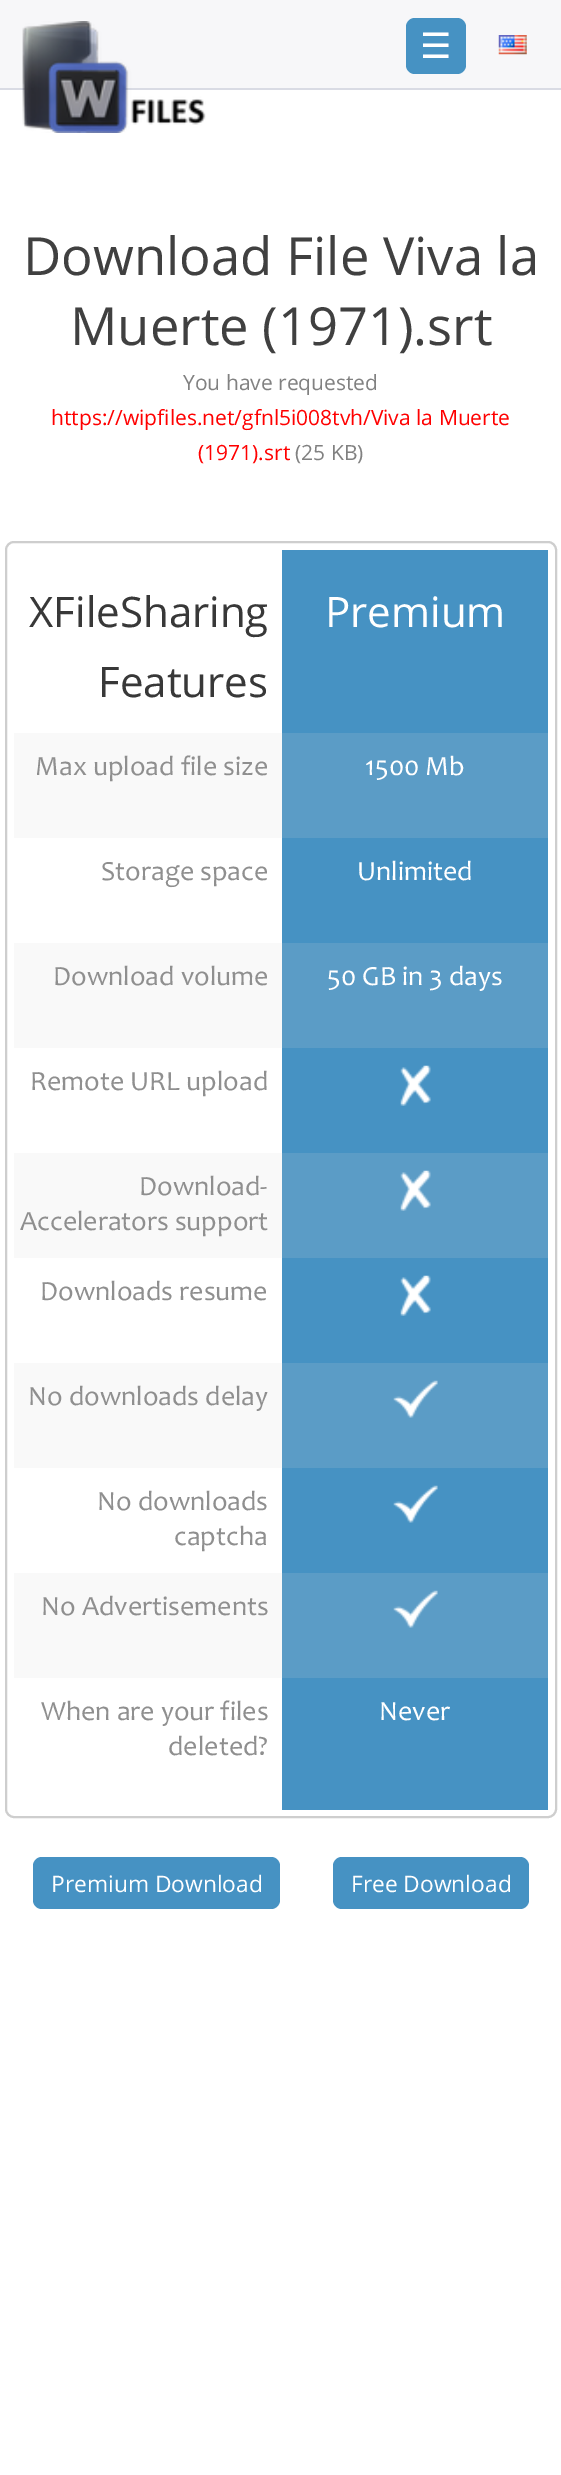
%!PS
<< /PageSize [561 2475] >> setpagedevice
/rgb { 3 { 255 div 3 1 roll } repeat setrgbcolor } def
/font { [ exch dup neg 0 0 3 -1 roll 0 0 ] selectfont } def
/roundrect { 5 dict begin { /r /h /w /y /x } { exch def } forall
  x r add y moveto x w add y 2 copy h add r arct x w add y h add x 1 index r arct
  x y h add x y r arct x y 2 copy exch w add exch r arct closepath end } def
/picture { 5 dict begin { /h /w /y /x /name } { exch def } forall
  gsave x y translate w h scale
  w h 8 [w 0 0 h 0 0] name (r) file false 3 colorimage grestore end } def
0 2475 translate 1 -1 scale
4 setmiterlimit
255 255 255 rgb
0 0 561 2475 rectfill
247 247 249 rgb
0 0 561 88 rectfill
70 146 195 rgb
406 18 60 56 9 roundrect fill
217 219 228 rgb
0 88 561 2 rectfill
(img/1.rgb) 22 21 184 112 picture
(img/2.rgb) 498 35 29 20 picture
206 206 206 rgb
2 setlinewidth
6 542 550 1275 8 roundrect stroke
[
  [14 733 268 105 249 249 249]
  [14 943 268 105 249 249 249]
  [14 1153 268 105 249 249 249]
  [14 1363 268 105 249 249 249]
  [14 1573 268 105 249 249 249]
  [282 550 266 1260 70 146 195]
  [282 733 266 105 91 156 198]
  [282 943 266 105 91 156 198]
] { aload pop rgb rectfill } forall
(img/3.rgb) 400 1065 31 41 picture
282 1153 266 105 rectfill
(img/4.rgb) 400 1170 31 41 picture
(img/3.rgb) 400 1275 31 41 picture
282 1363 266 105 rectfill
(img/5.rgb) 393 1380 45 38 picture
(img/6.rgb) 393 1485 45 38 picture
282 1573 266 105 rectfill
(img/5.rgb) 393 1590 45 38 picture
70 146 195 rgb
33 1857 247 52 9 roundrect fill
333 1857 196 52 9 roundrect fill
/DejaVuSans-Regular 35 font
255 255 255 rgb
420 58 moveto (☰) show
/OpenSans-Regular 52.5 font
64 64 64 rgb
23 275 moveto (Download File Viva la) show
70 345 moveto (Muerte \(1971\).srt) show
/OpenSans-Regular 21 font
129 129 129 rgb
183 390 moveto (You have requested) show
255 0 0 rgb
51 425 moveto (https://wipfiles.net/gfnl5i008tvh/Viva la Muerte) show
198 460 moveto (\(1971\).srt) show
129 129 129 rgb
295 460 moveto (\(25 KB\)) show
/OpenSans-Regular 42 font
56 56 56 rgb
29 627 moveto (XFileSharing) show
98 697 moveto (Features) show
/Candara-Regular 28 font
143 143 143 rgb
[
  [(Max upload file size) 35 775]
  [(Storage space) 101 880]
  [(Download volume) 53 985]
  [(Remote URL upload) 30 1090]
  [(Download-) 139 1195]
  [(Accelerators support) 20 1230]
  [(Downloads resume) 40 1300]
  [(No downloads delay) 28 1405]
  [(No downloads) 97 1510]
  [(captcha) 174 1545]
  [(No Advertisements) 41 1615]
  [(When are your files) 41 1720]
  [(deleted?) 168 1755]
] { aload pop moveto show } forall
/OpenSans-Regular 42 font
255 255 255 rgb
325 627 moveto (Premium) show
/Candara-Regular 28 font
[
  [(1500 Mb) 365 775]
  [(Unlimited) 357 880]
  [(50 GB in 3 days) 327 985]
  [(Never) 379 1720]
] { aload pop moveto show } forall
/OpenSans-Regular 22.75 font
51 1892 moveto (Premium Download) show
351 1892 moveto (Free Download) show
showpage
